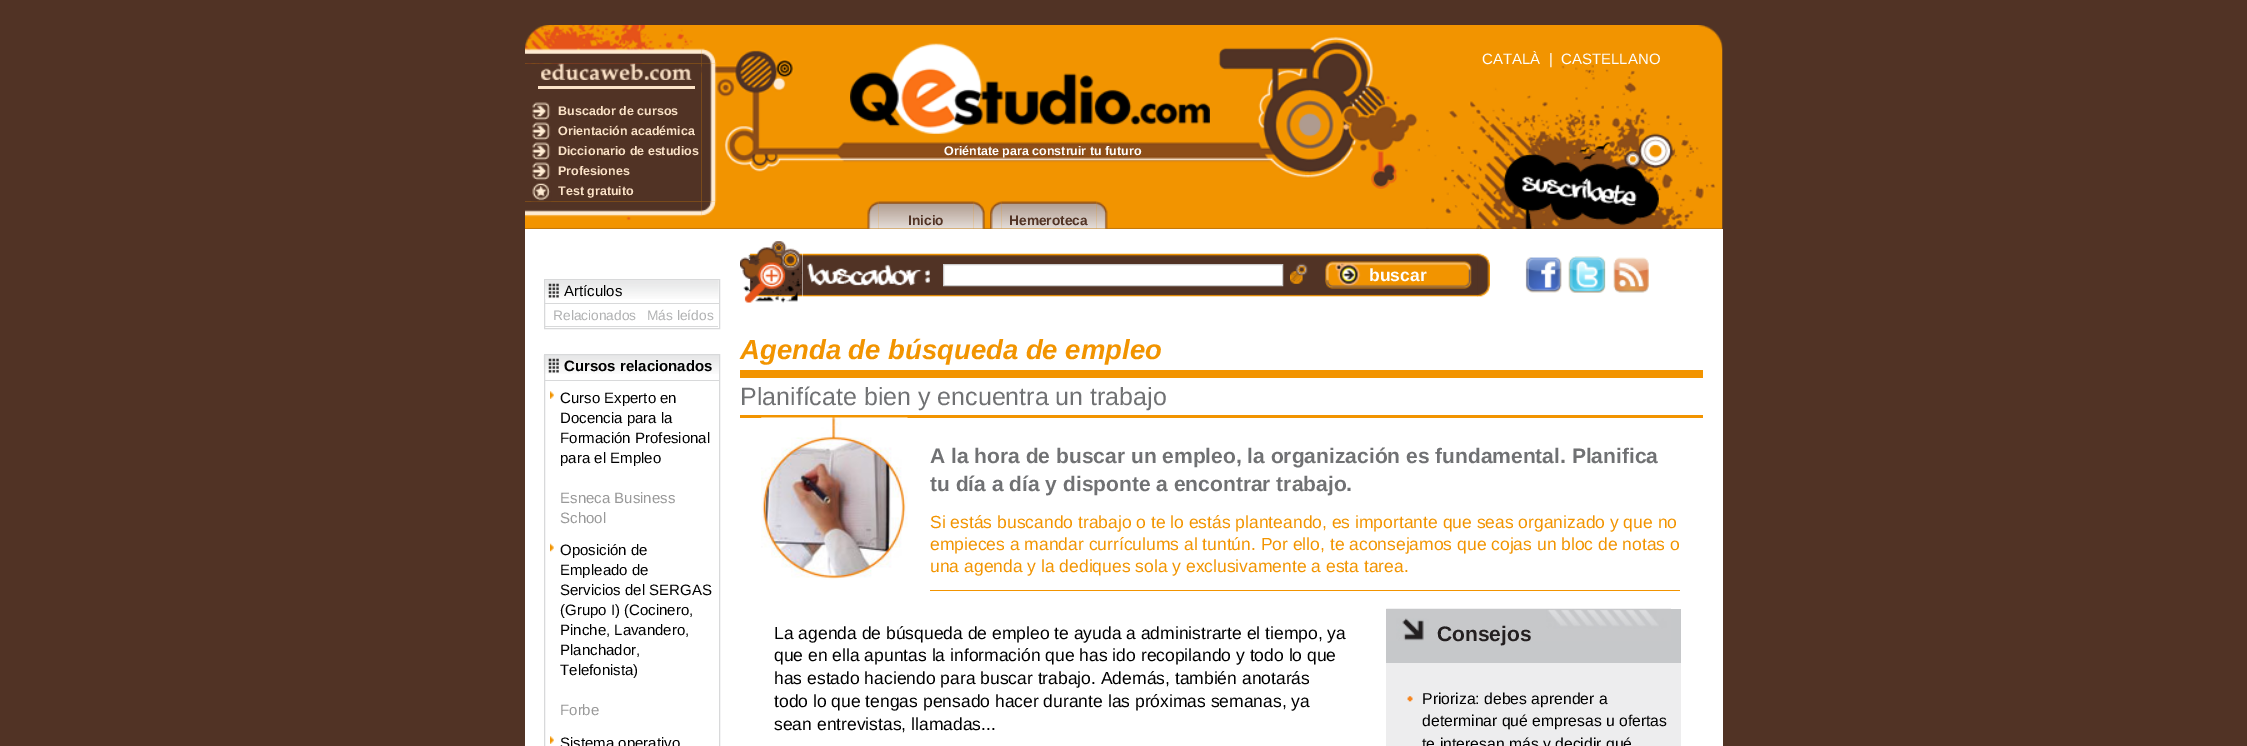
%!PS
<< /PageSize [2247 746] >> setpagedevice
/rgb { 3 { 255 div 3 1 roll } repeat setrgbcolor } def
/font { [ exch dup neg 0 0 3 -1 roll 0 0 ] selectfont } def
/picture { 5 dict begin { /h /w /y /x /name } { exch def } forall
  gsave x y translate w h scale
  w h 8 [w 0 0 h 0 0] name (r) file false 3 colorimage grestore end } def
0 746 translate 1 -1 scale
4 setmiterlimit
81 51 37 rgb
0 0 2247 746 rectfill
255 255 255 rgb
525 229 1198 517 rectfill
(img/1.rgb) 525 25 1198 204 picture
(img/2.rgb) 1503 133 170 96 picture
(img/3.rgb) 525 48 177 16 picture
(img/4.rgb) 701 48 16 16 picture
81 51 37 rgb
525 64 176 137 rectfill
(img/5.rgb) 541 63 151 17 picture
251 226 199 rgb
538 86 157 3 rectfill
(img/6.rgb) 532 102 19 19 picture
(img/6.rgb) 532 122 19 19 picture
(img/6.rgb) 532 142 19 19 picture
(img/6.rgb) 532 162 19 19 picture
(img/7.rgb) 531 183 21 19 picture
(img/8.rgb) 701 63 16 139 picture
(img/9.rgb) 525 201 177 16 picture
(img/10.rgb) 701 201 16 16 picture
(img/11.rgb) 850 43 360 91 picture
(img/12.rgb) 867 201 12 28 picture
(img/13.rgb) 878 201 96 28 picture
(img/14.rgb) 973 201 12 28 picture
(img/15.rgb) 990 201 12 28 picture
(img/16.rgb) 1001 201 96 28 picture
(img/17.rgb) 1096 201 12 28 picture
216 217 218 rgb
544.5 279.5 175 49 rectstroke
(img/18.rgb) 545 280 174 19 picture
545 303 174 1 rectfill
(img/19.rgb) 548 283 11 15 picture
545 326 173 1 rectfill
(img/20.rgb) 543 355 176 19 picture
544.5 354.5 175 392 rectstroke
(img/19.rgb) 548 358 11 15 picture
545 380 174 1 rectfill
(img/21.rgb) 550 391 4 8 picture
(img/22.rgb) 550 543 4 9 picture
(img/21.rgb) 550 736 4 8 picture
(img/23.rgb) 803 253 675 44 picture
(img/24.rgb) 740 241 63 62 picture
(img/25.rgb) 807 263 123 23 picture
255 255 255 rgb
943.5 264.5 moveto 1282.5 264.5 lineto 1282.5 285.5 lineto 943.5 285.5 lineto closepath gsave fill grestore
204 204 204 rgb
stroke
(img/26.rgb) 1290 263 18 21 picture
(img/27.rgb) 1325 261 147 28 picture
(img/28.rgb) 1477 253 13 44 picture
(img/29.rgb) 1525 257 37 36 picture
(img/30.rgb) 1568 256 38 37 picture
(img/31.rgb) 1613 257 36 36 picture
242 148 0 rgb
740 370 963 8 rectfill
740 415 963 3 rectfill
(img/32.rgb) 761 417 147 163 picture
[
  [930 590 750 1 242 148 0]
  [1386 663 295 83 237 237 238]
  [1386 609 295 54 198 200 202]
] { aload pop rgb rectfill } forall
(img/33.rgb) 1386 608 285 33 picture
(img/34.rgb) 1407 696 6 6 picture
/LiberationSans-Regular 15 font
255 255 255 rgb
[
  [(CATALÀ) 1482 64]
  [(|) 1549 64]
  [(CASTELLANO) 1561 64]
] { aload pop moveto show } forall
/LiberationSans-Bold 12.5 font
251 226 199 rgb
[
  [(Buscador de cursos) 558 115]
  [(Orientación académica) 558 135]
  [(Diccionario de estudios) 558 155]
  [(Profesiones) 558 175]
  [(Test gratuito) 558 195]
] { aload pop moveto show } forall
255 255 255 rgb
944 155 moveto (Oriéntate para construir tu futuro) show
/LiberationSans-Bold 13.75 font
81 51 37 rgb
908 225 moveto (Inicio) show
1009 225 moveto (Hemeroteca) show
/LiberationSans-Regular 15 font
0 0 0 rgb
564 296 moveto (Artículos) show
/LiberationSans-Regular 13.75 font
176 177 178 rgb
553 320 moveto (Relacionados) show
647 320 moveto (Más leídos) show
/LiberationSans-Bold 15 font
0 0 0 rgb
564 371 moveto (Cursos relacionados) show
/LiberationSans-Regular 15 font
[
  [(Curso Experto en) 560 403]
  [(Docencia para la) 560 423]
  [(Formación Profesional) 560 443]
  [(para el Empleo) 560 463]
] { aload pop moveto show } forall
153 153 153 rgb
560 503 moveto (Esneca Business) show
560 523 moveto (School) show
0 0 0 rgb
[
  [(Oposición de) 560 555]
  [(Empleado de) 560 575]
  [(Servicios del SERGAS) 560 595]
  [(\(Grupo I\) \(Cocinero,) 560 615]
  [(Pinche, Lavandero,) 560 635]
  [(Planchador,) 560 655]
  [(Telefonista\)) 560 675]
] { aload pop moveto show } forall
153 153 153 rgb
560 715 moveto (Forbe) show
0 0 0 rgb
560 748 moveto (Sistema operativo) show
/LiberationSans-Bold 17.5 font
255 255 255 rgb
1369 281 moveto (buscar) show
/LiberationSans-BoldItalic 27.5 font
242 148 0 rgb
740 359 moveto (Agenda de búsqueda de empleo) show
/LiberationSans-Regular 25 font
112 113 115 rgb
740 405 moveto (Planifícate bien y encuentra un trabajo) show
/LiberationSans-Bold 21 font
930 463 moveto (A la hora de buscar un empleo, la organización es fundamental. Planifica) show
930 491 moveto (tu día a día y disponte a encontrar trabajo.) show
/LiberationSans-Regular 17.5 font
242 148 0 rgb
[
  [(Si estás buscando trabajo o te lo estás planteando, es importante que seas organizado y que no) 930 528]
  [(empieces a mandar currículums al tuntún. Por ello, te aconsejamos que cojas un bloc de notas o) 930 550]
  [(una agenda y la dediques sola y exclusivamente a esta tarea.) 930 572]
] { aload pop moveto show } forall
0 0 0 rgb
[
  [(La agenda de búsqueda de empleo te ayuda a administrarte el tiempo, ya) 774 639]
  [(que en ella apuntas la información que has ido recopilando y todo lo que) 774 661]
  [(has estado haciendo para buscar trabajo. Además, también anotarás) 774 684]
  [(todo lo que tengas pensado hacer durante las próximas semanas, ya) 774 707]
  [(sean entrevistas, llamadas...) 774 730]
] { aload pop moveto show } forall
/LiberationSans-Bold 21 font
35 31 32 rgb
1437 641 moveto (Consejos) show
/LiberationSans-Regular 15.75 font
0 0 0 rgb
[
  [(Prioriza: debes aprender a) 1422 704]
  [(determinar qué empresas u ofertas) 1422 726]
  [(te interesan más y decidir qué) 1422 749]
] { aload pop moveto show } forall
showpage
